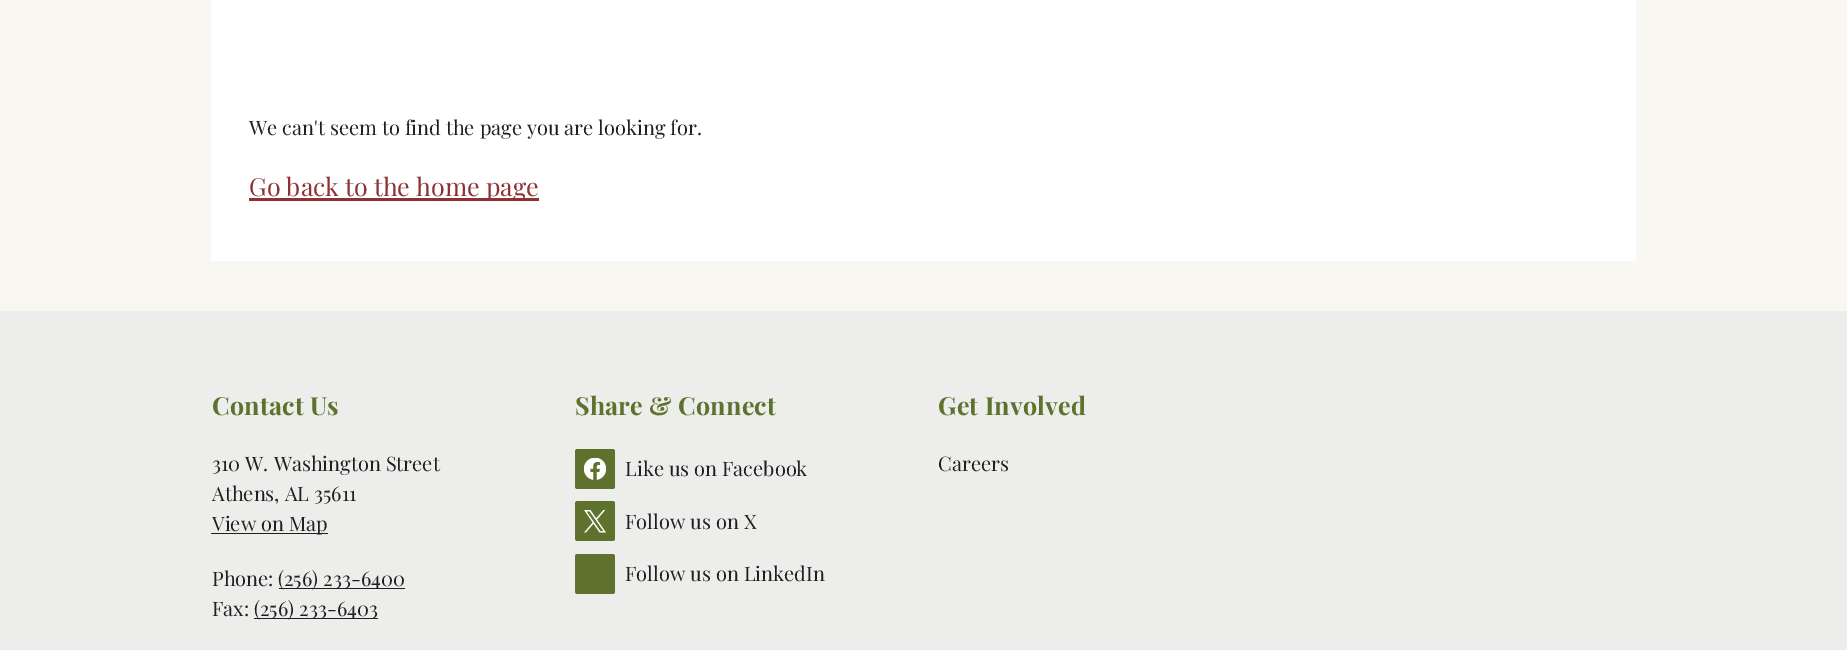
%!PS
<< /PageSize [1847 650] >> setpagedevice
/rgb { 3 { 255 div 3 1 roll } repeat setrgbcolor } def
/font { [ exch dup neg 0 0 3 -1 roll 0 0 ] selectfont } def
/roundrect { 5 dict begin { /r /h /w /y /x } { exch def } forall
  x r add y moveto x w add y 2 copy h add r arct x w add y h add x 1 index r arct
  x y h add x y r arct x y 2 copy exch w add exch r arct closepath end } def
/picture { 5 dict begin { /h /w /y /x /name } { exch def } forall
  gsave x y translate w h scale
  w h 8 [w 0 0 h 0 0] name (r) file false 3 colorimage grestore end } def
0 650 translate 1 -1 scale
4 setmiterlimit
248 247 242 rgb
0 0 1847 650 rectfill
[
  [211 0 1425 261 255 255 255]
  [249 198 290 3 141 49 50]
  [0 311 1847 339 237 237 236]
  [211 533 117 1 31 31 31]
  [279 588 126 1 31 31 31]
  [254 618 124 1 31 31 31]
] { aload pop rgb rectfill } forall
95 114 45 rgb
575 449 40 40 2.5 roundrect fill
(img/1.rgb) 584 458 22 22 picture
575 501 40 40 2.5 roundrect fill
(img/2.rgb) 584 510 22 23 picture
575 554 40 40 2.5 roundrect fill
/PlayfairDisplay-Regular 20 font
31 31 31 rgb
249 135 moveto (We can't seem to find the page you are looking for.) show
/PlayfairDisplay-Regular 25 font
141 49 50 rgb
249 196 moveto (Go back to the home page) show
/PlayfairDisplay-Bold 25 font
95 114 45 rgb
212 415 moveto 0.25 0 (Contact Us) ashow
/PlayfairDisplay-Regular 20 font
31 31 31 rgb
[
  [(310 W. Washington Street) 212 471]
  [(Athens, AL 35611) 212 501]
  [(View on Map) 212 531]
  [(Phone:) 212 586]
  [(\(256\) 233-6400) 278 586]
  [(Fax:) 212 616]
  [(\(256\) 233-6403) 254 616]
] { aload pop moveto show } forall
/PlayfairDisplay-Bold 25 font
95 114 45 rgb
575 415 moveto 0.25 0 (Share & Connect) ashow
/PlayfairDisplay-Regular 20 font
31 31 31 rgb
[
  [(Like us on Facebook) 625 476]
  [(Follow us on X) 625 529]
  [(Follow us on LinkedIn) 625 581]
] { aload pop moveto show } forall
/PlayfairDisplay-Bold 25 font
95 114 45 rgb
938 415 moveto 0.25 0 (Get Involved) ashow
/PlayfairDisplay-Regular 20 font
31 31 31 rgb
938 471 moveto (Careers) show
showpage
